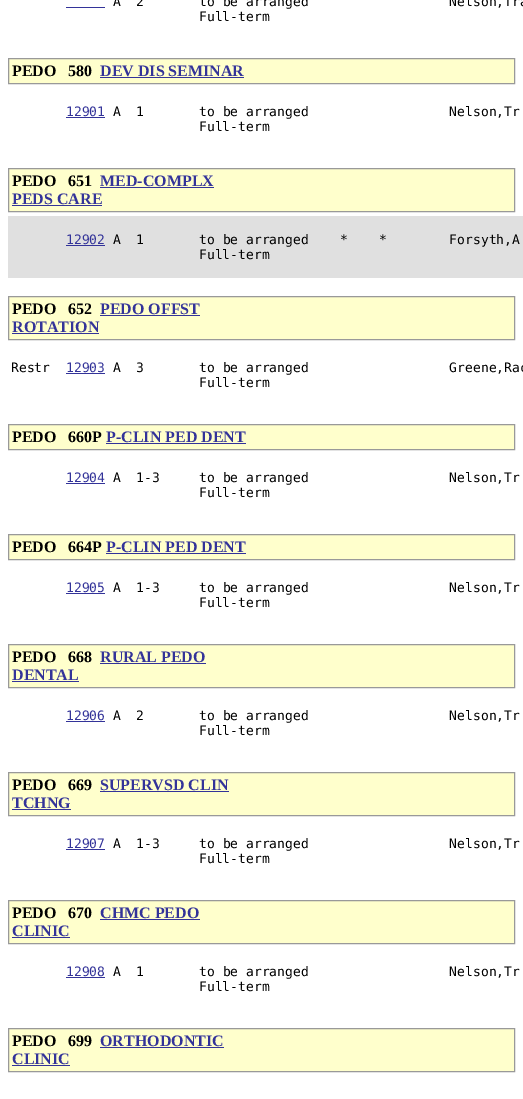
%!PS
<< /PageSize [523 1099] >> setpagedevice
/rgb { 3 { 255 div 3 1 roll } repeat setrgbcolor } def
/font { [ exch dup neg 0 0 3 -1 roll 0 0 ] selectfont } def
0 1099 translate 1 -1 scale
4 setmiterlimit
255 255 255 rgb
0 0 523 1099 rectfill
51 51 153 rgb
66 7 39 1 rectfill
255 255 204 rgb
8.5 58.5 moveto 514.5 58.5 lineto 514.5 83.5 lineto 8.5 83.5 lineto closepath gsave fill grestore
153 153 153 rgb
stroke
51 51 153 rgb
100 77 144 1 rectfill
66 117 39 1 rectfill
255 255 204 rgb
8.5 168.5 moveto 514.5 168.5 lineto 514.5 211.5 lineto 8.5 211.5 lineto closepath gsave fill grestore
153 153 153 rgb
stroke
[
  [100 187 114 1 51 51 153]
  [12 205 90 1 51 51 153]
  [8 216 515 62 224 224 224]
  [66 245 39 1 51 51 153]
] { aload pop rgb rectfill } forall
255 255 204 rgb
8.5 296.5 moveto 514.5 296.5 lineto 514.5 339.5 lineto 8.5 339.5 lineto closepath gsave fill grestore
153 153 153 rgb
stroke
[
  [100 315 100 1 51 51 153]
  [12 333 87 1 51 51 153]
  [66 373 39 1 51 51 153]
] { aload pop rgb rectfill } forall
255 255 204 rgb
8.5 424.5 moveto 514.5 424.5 lineto 514.5 449.5 lineto 8.5 449.5 lineto closepath gsave fill grestore
153 153 153 rgb
stroke
51 51 153 rgb
106 443 140 1 rectfill
66 483 39 1 rectfill
255 255 204 rgb
8.5 534.5 moveto 514.5 534.5 lineto 514.5 559.5 lineto 8.5 559.5 lineto closepath gsave fill grestore
153 153 153 rgb
stroke
51 51 153 rgb
106 553 140 1 rectfill
66 593 39 1 rectfill
255 255 204 rgb
8.5 644.5 moveto 514.5 644.5 lineto 514.5 687.5 lineto 8.5 687.5 lineto closepath gsave fill grestore
153 153 153 rgb
stroke
[
  [100 663 106 1 51 51 153]
  [12 681 67 1 51 51 153]
  [66 721 39 1 51 51 153]
] { aload pop rgb rectfill } forall
255 255 204 rgb
8.5 772.5 moveto 514.5 772.5 lineto 514.5 815.5 lineto 8.5 815.5 lineto closepath gsave fill grestore
153 153 153 rgb
stroke
[
  [100 791 129 1 51 51 153]
  [12 809 59 1 51 51 153]
  [66 849 39 1 51 51 153]
] { aload pop rgb rectfill } forall
255 255 204 rgb
8.5 900.5 moveto 514.5 900.5 lineto 514.5 943.5 lineto 8.5 943.5 lineto closepath gsave fill grestore
153 153 153 rgb
stroke
[
  [100 919 100 1 51 51 153]
  [12 937 58 1 51 51 153]
  [66 977 39 1 51 51 153]
] { aload pop rgb rectfill } forall
255 255 204 rgb
8.5 1028.5 moveto 514.5 1028.5 lineto 514.5 1071.5 lineto 8.5 1071.5 lineto closepath gsave fill grestore
153 153 153 rgb
stroke
51 51 153 rgb
100 1047 124 1 rectfill
12 1065 58 1 rectfill
/DejaVuSansMono-Regular 13 font
0 0 0 rgb
113 6 moveto (A  2       to be arranged                  Nelson,Tra) show
199 21 moveto (Full-term) show
/LiberationSerif-Bold 16 font
12 76 moveto (PEDO   580) show
51 51 153 rgb
100 76 moveto (DEV DIS SEMINAR) show
/DejaVuSansMono-Regular 13 font
66 116 moveto (12901) show
0 0 0 rgb
113 116 moveto (A  1       to be arranged                  Nelson,Tr) show
199 131 moveto (Full-term) show
/LiberationSerif-Bold 16 font
12 186 moveto (PEDO   651) show
51 51 153 rgb
100 186 moveto (MED-COMPLX) show
12 204 moveto (PEDS CARE) show
/DejaVuSansMono-Regular 13 font
66 244 moveto (12902) show
0 0 0 rgb
113 244 moveto (A  1       to be arranged    *    *        Forsyth,A) show
199 259 moveto (Full-term) show
/LiberationSerif-Bold 16 font
12 314 moveto (PEDO   652) show
51 51 153 rgb
100 314 moveto (PEDO OFFST) show
12 332 moveto (ROTATION) show
/DejaVuSansMono-Regular 13 font
0 0 0 rgb
11 372 moveto (Restr) show
51 51 153 rgb
66 372 moveto (12903) show
0 0 0 rgb
113 372 moveto (A  3       to be arranged                  Greene,Rac) show
199 387 moveto (Full-term) show
/LiberationSerif-Bold 16 font
12 442 moveto (PEDO   660P) show
51 51 153 rgb
106 442 moveto (P-CLIN PED DENT) show
/DejaVuSansMono-Regular 13 font
66 482 moveto (12904) show
0 0 0 rgb
113 482 moveto (A  1-3     to be arranged                  Nelson,Tr) show
199 497 moveto (Full-term) show
/LiberationSerif-Bold 16 font
12 552 moveto (PEDO   664P) show
51 51 153 rgb
106 552 moveto (P-CLIN PED DENT) show
/DejaVuSansMono-Regular 13 font
66 592 moveto (12905) show
0 0 0 rgb
113 592 moveto (A  1-3     to be arranged                  Nelson,Tr) show
199 607 moveto (Full-term) show
/LiberationSerif-Bold 16 font
12 662 moveto (PEDO   668) show
51 51 153 rgb
100 662 moveto (RURAL PEDO) show
12 680 moveto (DENTAL) show
/DejaVuSansMono-Regular 13 font
66 720 moveto (12906) show
0 0 0 rgb
113 720 moveto (A  2       to be arranged                  Nelson,Tr) show
199 735 moveto (Full-term) show
/LiberationSerif-Bold 16 font
12 790 moveto (PEDO   669) show
51 51 153 rgb
100 790 moveto (SUPERVSD CLIN) show
12 808 moveto (TCHNG) show
/DejaVuSansMono-Regular 13 font
66 848 moveto (12907) show
0 0 0 rgb
113 848 moveto (A  1-3     to be arranged                  Nelson,Tr) show
199 863 moveto (Full-term) show
/LiberationSerif-Bold 16 font
12 918 moveto (PEDO   670) show
51 51 153 rgb
100 918 moveto (CHMC PEDO) show
12 936 moveto (CLINIC) show
/DejaVuSansMono-Regular 13 font
66 976 moveto (12908) show
0 0 0 rgb
113 976 moveto (A  1       to be arranged                  Nelson,Tr) show
199 991 moveto (Full-term) show
/LiberationSerif-Bold 16 font
12 1046 moveto (PEDO   699) show
51 51 153 rgb
100 1046 moveto (ORTHODONTIC) show
12 1064 moveto (CLINIC) show
showpage
